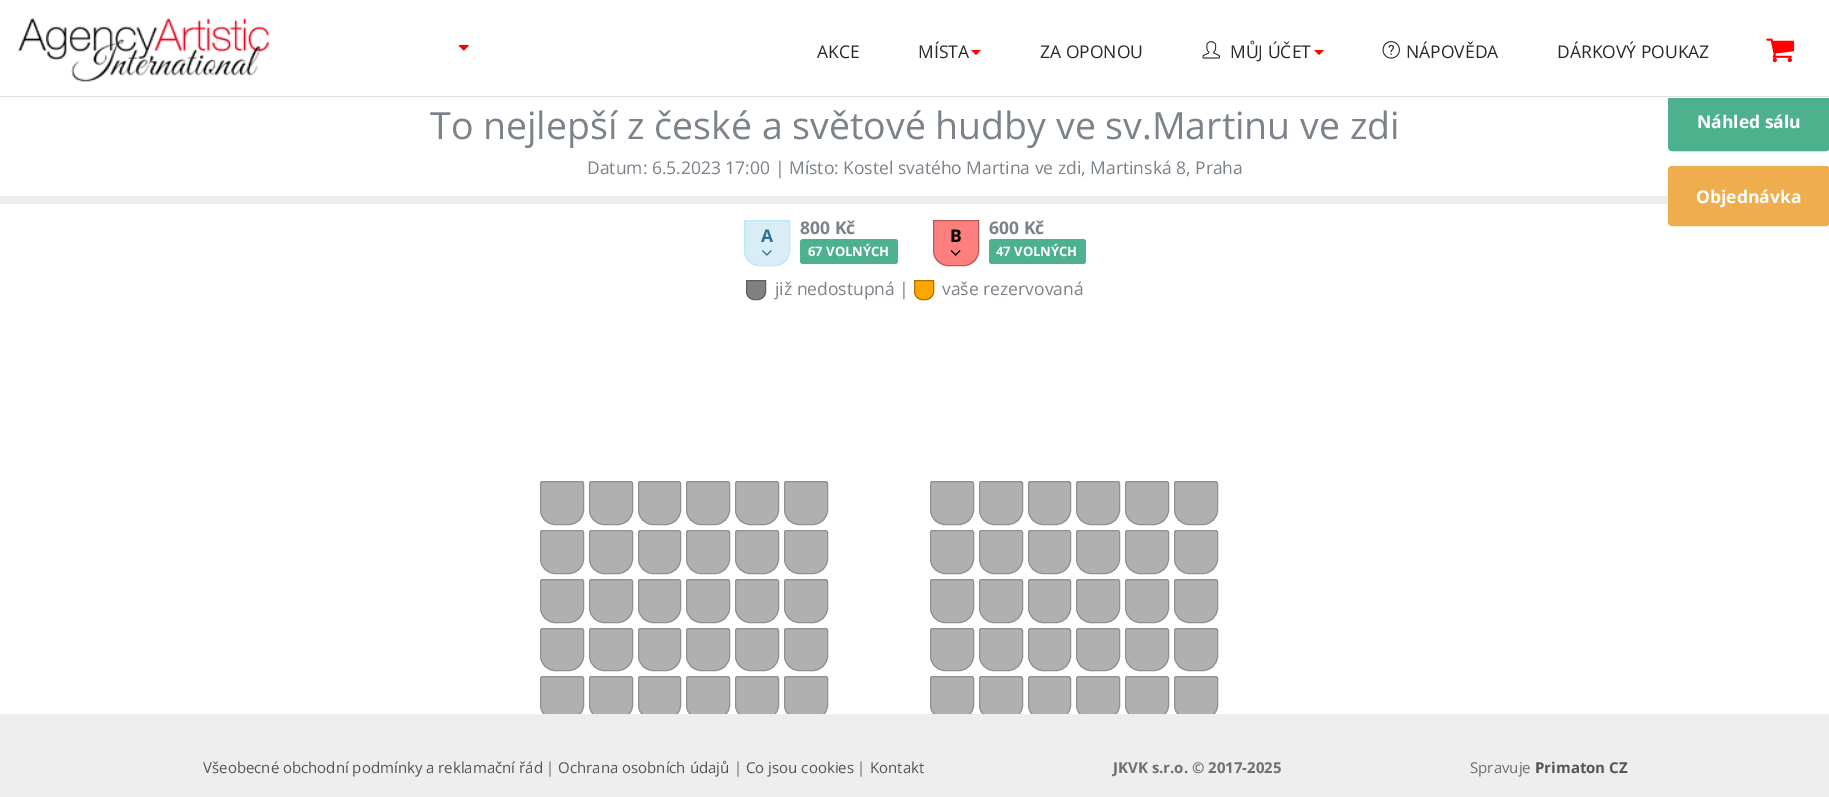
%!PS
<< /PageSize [1829 797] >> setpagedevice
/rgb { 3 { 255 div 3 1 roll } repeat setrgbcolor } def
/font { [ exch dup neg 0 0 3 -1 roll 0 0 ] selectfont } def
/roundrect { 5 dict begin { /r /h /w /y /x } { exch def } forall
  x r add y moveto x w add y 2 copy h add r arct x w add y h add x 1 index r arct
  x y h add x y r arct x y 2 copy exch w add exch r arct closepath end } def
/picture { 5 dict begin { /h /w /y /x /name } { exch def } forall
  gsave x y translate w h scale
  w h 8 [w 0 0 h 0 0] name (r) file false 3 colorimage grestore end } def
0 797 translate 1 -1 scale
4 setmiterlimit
255 255 255 rgb
0 0 1829 797 rectfill
77 177 141 rgb
1668.5 91.5 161 59 3.5 roundrect gsave fill grestore
stroke
255 255 255 rgb
1668 91 161 7 rectfill
221 221 221 rgb
0 96 1829 1 rectfill
(img/1.rgb) 18 18 251 64 picture
(img/2.rgb) 458 45 11 6 picture
255 0 0 rgb
971 50 moveto 981 50 lineto 976 55 lineto closepath fill
(img/3.rgb) 1202 41 18 18 picture
1314 50 moveto 1324 50 lineto 1319 55 lineto closepath fill
(img/4.rgb) 1382 41 18 18 picture
(img/5.rgb) 1766 38 29 25 picture
238 238 238 rgb
0 196 1668 8 rectfill
240 173 78 rgb
1668.5 166.5 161 59 3.5 roundrect gsave fill grestore
stroke
217 237 247 rgb
744.5 220.5 moveto 789.5 220.5 lineto 789.5 251 lineto 789.5 259 783 265.5 775 265.5 curveto 759 265.5 lineto 751 265.5 744.5 259 744.5 251 curveto closepath gsave fill grestore
188 232 241 rgb
stroke
(img/6.rgb) 762 250 10 6 picture
77 177 141 rgb
800 239 98 25 3 roundrect fill
255 126 126 rgb
933.5 220.5 moveto 978.5 220.5 lineto 978.5 251 lineto 978.5 259 972 265.5 964 265.5 curveto 948 265.5 lineto 940 265.5 933.5 259 933.5 251 curveto closepath gsave fill grestore
181 89 89 rgb
stroke
(img/7.rgb) 950 250 11 6 picture
77 177 141 rgb
989 239 97 25 3 roundrect fill
128 128 128 rgb
746.5 280.5 moveto 765.5 280.5 lineto 765.5 292 lineto 765.5 296 762 299.5 758 299.5 curveto 754 299.5 lineto 750 299.5 746.5 296 746.5 292 curveto closepath gsave fill grestore
96 96 96 rgb
stroke
255 165 0 rgb
914.5 280.5 moveto 933.5 280.5 lineto 933.5 292 lineto 933.5 296 930 299.5 926 299.5 curveto 922 299.5 lineto 918 299.5 914.5 296 914.5 292 curveto closepath gsave fill grestore
175 113 0 rgb
stroke
176 176 176 rgb
542.5 481.5 moveto 581.5 481.5 lineto 582.5 481.5 583.5 482.5 583.5 483.5 curveto 583.5 510 lineto 583.5 518 577 524.5 569 524.5 curveto 555 524.5 lineto 547 524.5 540.5 518 540.5 510 curveto 540.5 483.5 lineto 540.5 482.5 541.5 481.5 542.5 481.5 curveto closepath gsave fill grestore
144 144 144 rgb
stroke
176 176 176 rgb
591.5 481.5 moveto 630.5 481.5 lineto 631.5 481.5 632.5 482.5 632.5 483.5 curveto 632.5 510 lineto 632.5 518 626 524.5 618 524.5 curveto 604 524.5 lineto 596 524.5 589.5 518 589.5 510 curveto 589.5 483.5 lineto 589.5 482.5 590.5 481.5 591.5 481.5 curveto closepath gsave fill grestore
144 144 144 rgb
stroke
176 176 176 rgb
640.5 481.5 moveto 678.5 481.5 lineto 679.5 481.5 680.5 482.5 680.5 483.5 curveto 680.5 510 lineto 680.5 518 674 524.5 666 524.5 curveto 653 524.5 lineto 645 524.5 638.5 518 638.5 510 curveto 638.5 483.5 lineto 638.5 482.5 639.5 481.5 640.5 481.5 curveto closepath gsave fill grestore
144 144 144 rgb
stroke
176 176 176 rgb
688.5 481.5 moveto 727.5 481.5 lineto 728.5 481.5 729.5 482.5 729.5 483.5 curveto 729.5 510 lineto 729.5 518 723 524.5 715 524.5 curveto 701 524.5 lineto 693 524.5 686.5 518 686.5 510 curveto 686.5 483.5 lineto 686.5 482.5 687.5 481.5 688.5 481.5 curveto closepath gsave fill grestore
144 144 144 rgb
stroke
176 176 176 rgb
737.5 481.5 moveto 776.5 481.5 lineto 777.5 481.5 778.5 482.5 778.5 483.5 curveto 778.5 510 lineto 778.5 518 772 524.5 764 524.5 curveto 750 524.5 lineto 742 524.5 735.5 518 735.5 510 curveto 735.5 483.5 lineto 735.5 482.5 736.5 481.5 737.5 481.5 curveto closepath gsave fill grestore
144 144 144 rgb
stroke
176 176 176 rgb
786.5 481.5 moveto 825.5 481.5 lineto 826.5 481.5 827.5 482.5 827.5 483.5 curveto 827.5 510 lineto 827.5 518 821 524.5 813 524.5 curveto 799 524.5 lineto 791 524.5 784.5 518 784.5 510 curveto 784.5 483.5 lineto 784.5 482.5 785.5 481.5 786.5 481.5 curveto closepath gsave fill grestore
144 144 144 rgb
stroke
176 176 176 rgb
932.5 481.5 moveto 971.5 481.5 lineto 972.5 481.5 973.5 482.5 973.5 483.5 curveto 973.5 510 lineto 973.5 518 967 524.5 959 524.5 curveto 945 524.5 lineto 937 524.5 930.5 518 930.5 510 curveto 930.5 483.5 lineto 930.5 482.5 931.5 481.5 932.5 481.5 curveto closepath gsave fill grestore
144 144 144 rgb
stroke
176 176 176 rgb
981.5 481.5 moveto 1020.5 481.5 lineto 1021.5 481.5 1022.5 482.5 1022.5 483.5 curveto 1022.5 510 lineto 1022.5 518 1016 524.5 1008 524.5 curveto 994 524.5 lineto 986 524.5 979.5 518 979.5 510 curveto 979.5 483.5 lineto 979.5 482.5 980.5 481.5 981.5 481.5 curveto closepath gsave fill grestore
144 144 144 rgb
stroke
176 176 176 rgb
1030.5 481.5 moveto 1068.5 481.5 lineto 1069.5 481.5 1070.5 482.5 1070.5 483.5 curveto 1070.5 510 lineto 1070.5 518 1064 524.5 1056 524.5 curveto 1043 524.5 lineto 1035 524.5 1028.5 518 1028.5 510 curveto 1028.5 483.5 lineto 1028.5 482.5 1029.5 481.5 1030.5 481.5 curveto closepath gsave fill grestore
144 144 144 rgb
stroke
176 176 176 rgb
1078.5 481.5 moveto 1117.5 481.5 lineto 1118.5 481.5 1119.5 482.5 1119.5 483.5 curveto 1119.5 510 lineto 1119.5 518 1113 524.5 1105 524.5 curveto 1091 524.5 lineto 1083 524.5 1076.5 518 1076.5 510 curveto 1076.5 483.5 lineto 1076.5 482.5 1077.5 481.5 1078.5 481.5 curveto closepath gsave fill grestore
144 144 144 rgb
stroke
176 176 176 rgb
1127.5 481.5 moveto 1166.5 481.5 lineto 1167.5 481.5 1168.5 482.5 1168.5 483.5 curveto 1168.5 510 lineto 1168.5 518 1162 524.5 1154 524.5 curveto 1140 524.5 lineto 1132 524.5 1125.5 518 1125.5 510 curveto 1125.5 483.5 lineto 1125.5 482.5 1126.5 481.5 1127.5 481.5 curveto closepath gsave fill grestore
144 144 144 rgb
stroke
176 176 176 rgb
1176.5 481.5 moveto 1215.5 481.5 lineto 1216.5 481.5 1217.5 482.5 1217.5 483.5 curveto 1217.5 510 lineto 1217.5 518 1211 524.5 1203 524.5 curveto 1189 524.5 lineto 1181 524.5 1174.5 518 1174.5 510 curveto 1174.5 483.5 lineto 1174.5 482.5 1175.5 481.5 1176.5 481.5 curveto closepath gsave fill grestore
144 144 144 rgb
stroke
176 176 176 rgb
542.5 530.5 moveto 581.5 530.5 lineto 582.5 530.5 583.5 531.5 583.5 532.5 curveto 583.5 559 lineto 583.5 567 577 573.5 569 573.5 curveto 555 573.5 lineto 547 573.5 540.5 567 540.5 559 curveto 540.5 532.5 lineto 540.5 531.5 541.5 530.5 542.5 530.5 curveto closepath gsave fill grestore
144 144 144 rgb
stroke
176 176 176 rgb
591.5 530.5 moveto 630.5 530.5 lineto 631.5 530.5 632.5 531.5 632.5 532.5 curveto 632.5 559 lineto 632.5 567 626 573.5 618 573.5 curveto 604 573.5 lineto 596 573.5 589.5 567 589.5 559 curveto 589.5 532.5 lineto 589.5 531.5 590.5 530.5 591.5 530.5 curveto closepath gsave fill grestore
144 144 144 rgb
stroke
176 176 176 rgb
640.5 530.5 moveto 678.5 530.5 lineto 679.5 530.5 680.5 531.5 680.5 532.5 curveto 680.5 559 lineto 680.5 567 674 573.5 666 573.5 curveto 653 573.5 lineto 645 573.5 638.5 567 638.5 559 curveto 638.5 532.5 lineto 638.5 531.5 639.5 530.5 640.5 530.5 curveto closepath gsave fill grestore
144 144 144 rgb
stroke
176 176 176 rgb
688.5 530.5 moveto 727.5 530.5 lineto 728.5 530.5 729.5 531.5 729.5 532.5 curveto 729.5 559 lineto 729.5 567 723 573.5 715 573.5 curveto 701 573.5 lineto 693 573.5 686.5 567 686.5 559 curveto 686.5 532.5 lineto 686.5 531.5 687.5 530.5 688.5 530.5 curveto closepath gsave fill grestore
144 144 144 rgb
stroke
176 176 176 rgb
737.5 530.5 moveto 776.5 530.5 lineto 777.5 530.5 778.5 531.5 778.5 532.5 curveto 778.5 559 lineto 778.5 567 772 573.5 764 573.5 curveto 750 573.5 lineto 742 573.5 735.5 567 735.5 559 curveto 735.5 532.5 lineto 735.5 531.5 736.5 530.5 737.5 530.5 curveto closepath gsave fill grestore
144 144 144 rgb
stroke
176 176 176 rgb
786.5 530.5 moveto 825.5 530.5 lineto 826.5 530.5 827.5 531.5 827.5 532.5 curveto 827.5 559 lineto 827.5 567 821 573.5 813 573.5 curveto 799 573.5 lineto 791 573.5 784.5 567 784.5 559 curveto 784.5 532.5 lineto 784.5 531.5 785.5 530.5 786.5 530.5 curveto closepath gsave fill grestore
144 144 144 rgb
stroke
176 176 176 rgb
932.5 530.5 moveto 971.5 530.5 lineto 972.5 530.5 973.5 531.5 973.5 532.5 curveto 973.5 559 lineto 973.5 567 967 573.5 959 573.5 curveto 945 573.5 lineto 937 573.5 930.5 567 930.5 559 curveto 930.5 532.5 lineto 930.5 531.5 931.5 530.5 932.5 530.5 curveto closepath gsave fill grestore
144 144 144 rgb
stroke
176 176 176 rgb
981.5 530.5 moveto 1020.5 530.5 lineto 1021.5 530.5 1022.5 531.5 1022.5 532.5 curveto 1022.5 559 lineto 1022.5 567 1016 573.5 1008 573.5 curveto 994 573.5 lineto 986 573.5 979.5 567 979.5 559 curveto 979.5 532.5 lineto 979.5 531.5 980.5 530.5 981.5 530.5 curveto closepath gsave fill grestore
144 144 144 rgb
stroke
176 176 176 rgb
1030.5 530.5 moveto 1068.5 530.5 lineto 1069.5 530.5 1070.5 531.5 1070.5 532.5 curveto 1070.5 559 lineto 1070.5 567 1064 573.5 1056 573.5 curveto 1043 573.5 lineto 1035 573.5 1028.5 567 1028.5 559 curveto 1028.5 532.5 lineto 1028.5 531.5 1029.5 530.5 1030.5 530.5 curveto closepath gsave fill grestore
144 144 144 rgb
stroke
176 176 176 rgb
1078.5 530.5 moveto 1117.5 530.5 lineto 1118.5 530.5 1119.5 531.5 1119.5 532.5 curveto 1119.5 559 lineto 1119.5 567 1113 573.5 1105 573.5 curveto 1091 573.5 lineto 1083 573.5 1076.5 567 1076.5 559 curveto 1076.5 532.5 lineto 1076.5 531.5 1077.5 530.5 1078.5 530.5 curveto closepath gsave fill grestore
144 144 144 rgb
stroke
176 176 176 rgb
1127.5 530.5 moveto 1166.5 530.5 lineto 1167.5 530.5 1168.5 531.5 1168.5 532.5 curveto 1168.5 559 lineto 1168.5 567 1162 573.5 1154 573.5 curveto 1140 573.5 lineto 1132 573.5 1125.5 567 1125.5 559 curveto 1125.5 532.5 lineto 1125.5 531.5 1126.5 530.5 1127.5 530.5 curveto closepath gsave fill grestore
144 144 144 rgb
stroke
176 176 176 rgb
1176.5 530.5 moveto 1215.5 530.5 lineto 1216.5 530.5 1217.5 531.5 1217.5 532.5 curveto 1217.5 559 lineto 1217.5 567 1211 573.5 1203 573.5 curveto 1189 573.5 lineto 1181 573.5 1174.5 567 1174.5 559 curveto 1174.5 532.5 lineto 1174.5 531.5 1175.5 530.5 1176.5 530.5 curveto closepath gsave fill grestore
144 144 144 rgb
stroke
176 176 176 rgb
542.5 579.5 moveto 581.5 579.5 lineto 582.5 579.5 583.5 580.5 583.5 581.5 curveto 583.5 608 lineto 583.5 616 577 622.5 569 622.5 curveto 555 622.5 lineto 547 622.5 540.5 616 540.5 608 curveto 540.5 581.5 lineto 540.5 580.5 541.5 579.5 542.5 579.5 curveto closepath gsave fill grestore
144 144 144 rgb
stroke
176 176 176 rgb
591.5 579.5 moveto 630.5 579.5 lineto 631.5 579.5 632.5 580.5 632.5 581.5 curveto 632.5 608 lineto 632.5 616 626 622.5 618 622.5 curveto 604 622.5 lineto 596 622.5 589.5 616 589.5 608 curveto 589.5 581.5 lineto 589.5 580.5 590.5 579.5 591.5 579.5 curveto closepath gsave fill grestore
144 144 144 rgb
stroke
176 176 176 rgb
640.5 579.5 moveto 678.5 579.5 lineto 679.5 579.5 680.5 580.5 680.5 581.5 curveto 680.5 608 lineto 680.5 616 674 622.5 666 622.5 curveto 653 622.5 lineto 645 622.5 638.5 616 638.5 608 curveto 638.5 581.5 lineto 638.5 580.5 639.5 579.5 640.5 579.5 curveto closepath gsave fill grestore
144 144 144 rgb
stroke
176 176 176 rgb
688.5 579.5 moveto 727.5 579.5 lineto 728.5 579.5 729.5 580.5 729.5 581.5 curveto 729.5 608 lineto 729.5 616 723 622.5 715 622.5 curveto 701 622.5 lineto 693 622.5 686.5 616 686.5 608 curveto 686.5 581.5 lineto 686.5 580.5 687.5 579.5 688.5 579.5 curveto closepath gsave fill grestore
144 144 144 rgb
stroke
176 176 176 rgb
737.5 579.5 moveto 776.5 579.5 lineto 777.5 579.5 778.5 580.5 778.5 581.5 curveto 778.5 608 lineto 778.5 616 772 622.5 764 622.5 curveto 750 622.5 lineto 742 622.5 735.5 616 735.5 608 curveto 735.5 581.5 lineto 735.5 580.5 736.5 579.5 737.5 579.5 curveto closepath gsave fill grestore
144 144 144 rgb
stroke
176 176 176 rgb
786.5 579.5 moveto 825.5 579.5 lineto 826.5 579.5 827.5 580.5 827.5 581.5 curveto 827.5 608 lineto 827.5 616 821 622.5 813 622.5 curveto 799 622.5 lineto 791 622.5 784.5 616 784.5 608 curveto 784.5 581.5 lineto 784.5 580.5 785.5 579.5 786.5 579.5 curveto closepath gsave fill grestore
144 144 144 rgb
stroke
176 176 176 rgb
932.5 579.5 moveto 971.5 579.5 lineto 972.5 579.5 973.5 580.5 973.5 581.5 curveto 973.5 608 lineto 973.5 616 967 622.5 959 622.5 curveto 945 622.5 lineto 937 622.5 930.5 616 930.5 608 curveto 930.5 581.5 lineto 930.5 580.5 931.5 579.5 932.5 579.5 curveto closepath gsave fill grestore
144 144 144 rgb
stroke
176 176 176 rgb
981.5 579.5 moveto 1020.5 579.5 lineto 1021.5 579.5 1022.5 580.5 1022.5 581.5 curveto 1022.5 608 lineto 1022.5 616 1016 622.5 1008 622.5 curveto 994 622.5 lineto 986 622.5 979.5 616 979.5 608 curveto 979.5 581.5 lineto 979.5 580.5 980.5 579.5 981.5 579.5 curveto closepath gsave fill grestore
144 144 144 rgb
stroke
176 176 176 rgb
1030.5 579.5 moveto 1068.5 579.5 lineto 1069.5 579.5 1070.5 580.5 1070.5 581.5 curveto 1070.5 608 lineto 1070.5 616 1064 622.5 1056 622.5 curveto 1043 622.5 lineto 1035 622.5 1028.5 616 1028.5 608 curveto 1028.5 581.5 lineto 1028.5 580.5 1029.5 579.5 1030.5 579.5 curveto closepath gsave fill grestore
144 144 144 rgb
stroke
176 176 176 rgb
1078.5 579.5 moveto 1117.5 579.5 lineto 1118.5 579.5 1119.5 580.5 1119.5 581.5 curveto 1119.5 608 lineto 1119.5 616 1113 622.5 1105 622.5 curveto 1091 622.5 lineto 1083 622.5 1076.5 616 1076.5 608 curveto 1076.5 581.5 lineto 1076.5 580.5 1077.5 579.5 1078.5 579.5 curveto closepath gsave fill grestore
144 144 144 rgb
stroke
176 176 176 rgb
1127.5 579.5 moveto 1166.5 579.5 lineto 1167.5 579.5 1168.5 580.5 1168.5 581.5 curveto 1168.5 608 lineto 1168.5 616 1162 622.5 1154 622.5 curveto 1140 622.5 lineto 1132 622.5 1125.5 616 1125.5 608 curveto 1125.5 581.5 lineto 1125.5 580.5 1126.5 579.5 1127.5 579.5 curveto closepath gsave fill grestore
144 144 144 rgb
stroke
176 176 176 rgb
1176.5 579.5 moveto 1215.5 579.5 lineto 1216.5 579.5 1217.5 580.5 1217.5 581.5 curveto 1217.5 608 lineto 1217.5 616 1211 622.5 1203 622.5 curveto 1189 622.5 lineto 1181 622.5 1174.5 616 1174.5 608 curveto 1174.5 581.5 lineto 1174.5 580.5 1175.5 579.5 1176.5 579.5 curveto closepath gsave fill grestore
144 144 144 rgb
stroke
176 176 176 rgb
542.5 628.5 moveto 581.5 628.5 lineto 582.5 628.5 583.5 629.5 583.5 630.5 curveto 583.5 656 lineto 583.5 664 577 670.5 569 670.5 curveto 555 670.5 lineto 547 670.5 540.5 664 540.5 656 curveto 540.5 630.5 lineto 540.5 629.5 541.5 628.5 542.5 628.5 curveto closepath gsave fill grestore
144 144 144 rgb
stroke
176 176 176 rgb
591.5 628.5 moveto 630.5 628.5 lineto 631.5 628.5 632.5 629.5 632.5 630.5 curveto 632.5 656 lineto 632.5 664 626 670.5 618 670.5 curveto 604 670.5 lineto 596 670.5 589.5 664 589.5 656 curveto 589.5 630.5 lineto 589.5 629.5 590.5 628.5 591.5 628.5 curveto closepath gsave fill grestore
144 144 144 rgb
stroke
176 176 176 rgb
640.5 628.5 moveto 678.5 628.5 lineto 679.5 628.5 680.5 629.5 680.5 630.5 curveto 680.5 656 lineto 680.5 664 674 670.5 666 670.5 curveto 653 670.5 lineto 645 670.5 638.5 664 638.5 656 curveto 638.5 630.5 lineto 638.5 629.5 639.5 628.5 640.5 628.5 curveto closepath gsave fill grestore
144 144 144 rgb
stroke
176 176 176 rgb
688.5 628.5 moveto 727.5 628.5 lineto 728.5 628.5 729.5 629.5 729.5 630.5 curveto 729.5 656 lineto 729.5 664 723 670.5 715 670.5 curveto 701 670.5 lineto 693 670.5 686.5 664 686.5 656 curveto 686.5 630.5 lineto 686.5 629.5 687.5 628.5 688.5 628.5 curveto closepath gsave fill grestore
144 144 144 rgb
stroke
176 176 176 rgb
737.5 628.5 moveto 776.5 628.5 lineto 777.5 628.5 778.5 629.5 778.5 630.5 curveto 778.5 656 lineto 778.5 664 772 670.5 764 670.5 curveto 750 670.5 lineto 742 670.5 735.5 664 735.5 656 curveto 735.5 630.5 lineto 735.5 629.5 736.5 628.5 737.5 628.5 curveto closepath gsave fill grestore
144 144 144 rgb
stroke
176 176 176 rgb
786.5 628.5 moveto 825.5 628.5 lineto 826.5 628.5 827.5 629.5 827.5 630.5 curveto 827.5 656 lineto 827.5 664 821 670.5 813 670.5 curveto 799 670.5 lineto 791 670.5 784.5 664 784.5 656 curveto 784.5 630.5 lineto 784.5 629.5 785.5 628.5 786.5 628.5 curveto closepath gsave fill grestore
144 144 144 rgb
stroke
176 176 176 rgb
932.5 628.5 moveto 971.5 628.5 lineto 972.5 628.5 973.5 629.5 973.5 630.5 curveto 973.5 656 lineto 973.5 664 967 670.5 959 670.5 curveto 945 670.5 lineto 937 670.5 930.5 664 930.5 656 curveto 930.5 630.5 lineto 930.5 629.5 931.5 628.5 932.5 628.5 curveto closepath gsave fill grestore
144 144 144 rgb
stroke
176 176 176 rgb
981.5 628.5 moveto 1020.5 628.5 lineto 1021.5 628.5 1022.5 629.5 1022.5 630.5 curveto 1022.5 656 lineto 1022.5 664 1016 670.5 1008 670.5 curveto 994 670.5 lineto 986 670.5 979.5 664 979.5 656 curveto 979.5 630.5 lineto 979.5 629.5 980.5 628.5 981.5 628.5 curveto closepath gsave fill grestore
144 144 144 rgb
stroke
176 176 176 rgb
1030.5 628.5 moveto 1068.5 628.5 lineto 1069.5 628.5 1070.5 629.5 1070.5 630.5 curveto 1070.5 656 lineto 1070.5 664 1064 670.5 1056 670.5 curveto 1043 670.5 lineto 1035 670.5 1028.5 664 1028.5 656 curveto 1028.5 630.5 lineto 1028.5 629.5 1029.5 628.5 1030.5 628.5 curveto closepath gsave fill grestore
144 144 144 rgb
stroke
176 176 176 rgb
1078.5 628.5 moveto 1117.5 628.5 lineto 1118.5 628.5 1119.5 629.5 1119.5 630.5 curveto 1119.5 656 lineto 1119.5 664 1113 670.5 1105 670.5 curveto 1091 670.5 lineto 1083 670.5 1076.5 664 1076.5 656 curveto 1076.5 630.5 lineto 1076.5 629.5 1077.5 628.5 1078.5 628.5 curveto closepath gsave fill grestore
144 144 144 rgb
stroke
176 176 176 rgb
1127.5 628.5 moveto 1166.5 628.5 lineto 1167.5 628.5 1168.5 629.5 1168.5 630.5 curveto 1168.5 656 lineto 1168.5 664 1162 670.5 1154 670.5 curveto 1140 670.5 lineto 1132 670.5 1125.5 664 1125.5 656 curveto 1125.5 630.5 lineto 1125.5 629.5 1126.5 628.5 1127.5 628.5 curveto closepath gsave fill grestore
144 144 144 rgb
stroke
176 176 176 rgb
1176.5 628.5 moveto 1215.5 628.5 lineto 1216.5 628.5 1217.5 629.5 1217.5 630.5 curveto 1217.5 656 lineto 1217.5 664 1211 670.5 1203 670.5 curveto 1189 670.5 lineto 1181 670.5 1174.5 664 1174.5 656 curveto 1174.5 630.5 lineto 1174.5 629.5 1175.5 628.5 1176.5 628.5 curveto closepath gsave fill grestore
144 144 144 rgb
stroke
238 238 238 rgb
0 714 1829 83 rectfill
gsave
0 325 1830 389 rectclip
176 176 176 rgb
542.5 676.5 moveto 581.5 676.5 lineto 582.5 676.5 583.5 677.5 583.5 678.5 curveto 583.5 705 lineto 583.5 713 577 719.5 569 719.5 curveto 555 719.5 lineto 547 719.5 540.5 713 540.5 705 curveto 540.5 678.5 lineto 540.5 677.5 541.5 676.5 542.5 676.5 curveto closepath gsave fill grestore
144 144 144 rgb
stroke
176 176 176 rgb
591.5 676.5 moveto 630.5 676.5 lineto 631.5 676.5 632.5 677.5 632.5 678.5 curveto 632.5 705 lineto 632.5 713 626 719.5 618 719.5 curveto 604 719.5 lineto 596 719.5 589.5 713 589.5 705 curveto 589.5 678.5 lineto 589.5 677.5 590.5 676.5 591.5 676.5 curveto closepath gsave fill grestore
144 144 144 rgb
stroke
176 176 176 rgb
640.5 676.5 moveto 678.5 676.5 lineto 679.5 676.5 680.5 677.5 680.5 678.5 curveto 680.5 705 lineto 680.5 713 674 719.5 666 719.5 curveto 653 719.5 lineto 645 719.5 638.5 713 638.5 705 curveto 638.5 678.5 lineto 638.5 677.5 639.5 676.5 640.5 676.5 curveto closepath gsave fill grestore
144 144 144 rgb
stroke
176 176 176 rgb
688.5 676.5 moveto 727.5 676.5 lineto 728.5 676.5 729.5 677.5 729.5 678.5 curveto 729.5 705 lineto 729.5 713 723 719.5 715 719.5 curveto 701 719.5 lineto 693 719.5 686.5 713 686.5 705 curveto 686.5 678.5 lineto 686.5 677.5 687.5 676.5 688.5 676.5 curveto closepath gsave fill grestore
144 144 144 rgb
stroke
176 176 176 rgb
737.5 676.5 moveto 776.5 676.5 lineto 777.5 676.5 778.5 677.5 778.5 678.5 curveto 778.5 705 lineto 778.5 713 772 719.5 764 719.5 curveto 750 719.5 lineto 742 719.5 735.5 713 735.5 705 curveto 735.5 678.5 lineto 735.5 677.5 736.5 676.5 737.5 676.5 curveto closepath gsave fill grestore
144 144 144 rgb
stroke
176 176 176 rgb
786.5 676.5 moveto 825.5 676.5 lineto 826.5 676.5 827.5 677.5 827.5 678.5 curveto 827.5 705 lineto 827.5 713 821 719.5 813 719.5 curveto 799 719.5 lineto 791 719.5 784.5 713 784.5 705 curveto 784.5 678.5 lineto 784.5 677.5 785.5 676.5 786.5 676.5 curveto closepath gsave fill grestore
144 144 144 rgb
stroke
176 176 176 rgb
932.5 676.5 moveto 971.5 676.5 lineto 972.5 676.5 973.5 677.5 973.5 678.5 curveto 973.5 705 lineto 973.5 713 967 719.5 959 719.5 curveto 945 719.5 lineto 937 719.5 930.5 713 930.5 705 curveto 930.5 678.5 lineto 930.5 677.5 931.5 676.5 932.5 676.5 curveto closepath gsave fill grestore
144 144 144 rgb
stroke
176 176 176 rgb
981.5 676.5 moveto 1020.5 676.5 lineto 1021.5 676.5 1022.5 677.5 1022.5 678.5 curveto 1022.5 705 lineto 1022.5 713 1016 719.5 1008 719.5 curveto 994 719.5 lineto 986 719.5 979.5 713 979.5 705 curveto 979.5 678.5 lineto 979.5 677.5 980.5 676.5 981.5 676.5 curveto closepath gsave fill grestore
144 144 144 rgb
stroke
176 176 176 rgb
1030.5 676.5 moveto 1068.5 676.5 lineto 1069.5 676.5 1070.5 677.5 1070.5 678.5 curveto 1070.5 705 lineto 1070.5 713 1064 719.5 1056 719.5 curveto 1043 719.5 lineto 1035 719.5 1028.5 713 1028.5 705 curveto 1028.5 678.5 lineto 1028.5 677.5 1029.5 676.5 1030.5 676.5 curveto closepath gsave fill grestore
144 144 144 rgb
stroke
176 176 176 rgb
1078.5 676.5 moveto 1117.5 676.5 lineto 1118.5 676.5 1119.5 677.5 1119.5 678.5 curveto 1119.5 705 lineto 1119.5 713 1113 719.5 1105 719.5 curveto 1091 719.5 lineto 1083 719.5 1076.5 713 1076.5 705 curveto 1076.5 678.5 lineto 1076.5 677.5 1077.5 676.5 1078.5 676.5 curveto closepath gsave fill grestore
144 144 144 rgb
stroke
176 176 176 rgb
1127.5 676.5 moveto 1166.5 676.5 lineto 1167.5 676.5 1168.5 677.5 1168.5 678.5 curveto 1168.5 705 lineto 1168.5 713 1162 719.5 1154 719.5 curveto 1140 719.5 lineto 1132 719.5 1125.5 713 1125.5 705 curveto 1125.5 678.5 lineto 1125.5 677.5 1126.5 676.5 1127.5 676.5 curveto closepath gsave fill grestore
144 144 144 rgb
stroke
176 176 176 rgb
1176.5 676.5 moveto 1215.5 676.5 lineto 1216.5 676.5 1217.5 677.5 1217.5 678.5 curveto 1217.5 705 lineto 1217.5 713 1211 719.5 1203 719.5 curveto 1189 719.5 lineto 1181 719.5 1174.5 713 1174.5 705 curveto 1174.5 678.5 lineto 1174.5 677.5 1175.5 676.5 1176.5 676.5 curveto closepath gsave fill grestore
144 144 144 rgb
stroke
grestore
/OpenSans-Regular 17.5 font
38 41 45 rgb
[
  [(AKCE) 817 58]
  [(MÍSTA) 918 58]
  [(ZA OPONOU) 1040 58]
  [(MŮJ ÚČET) 1230 58]
  [(NÁPOVĚDA) 1406 58]
  [(DÁRKOVÝ POUKAZ) 1557 58]
] { aload pop moveto show } forall
/OpenSans-Regular 37.5 font
124 130 138 rgb
430 139 moveto (To nejlepší z české a světové hudby ve sv.Martinu ve zdi) show
/OpenSans-Regular 17.5 font
587 174 moveto (Datum: 6.5.2023 17:00 | Místo: Kostel svatého Martina ve zdi, Martinská 8, Praha) show
/OpenSans-Bold 17.5 font
255 255 255 rgb
1697 128 moveto (Náhled sálu) show
1696 203 moveto (Objednávka) show
49 112 143 rgb
761 242 moveto (A) show
124 130 138 rgb
800 234 moveto (800 Kč) show
/OpenSans-Bold 13 font
255 255 255 rgb
808 256 moveto (67 VOLNÝCH) show
/OpenSans-Bold 17.5 font
0 0 0 rgb
950 242 moveto (B) show
124 130 138 rgb
989 234 moveto (600 Kč) show
/OpenSans-Bold 13 font
255 255 255 rgb
996 256 moveto (47 VOLNÝCH) show
/OpenSans-Regular 17.5 font
124 130 138 rgb
775 295 moveto (již nedostupná |) show
942 295 moveto (vaše rezervovaná) show
/OpenSans-Regular 15 font
85 85 85 rgb
203 773 moveto (Všeobecné obchodní podmínky a reklamační řád) show
112 112 112 rgb
546 773 moveto (|) show
85 85 85 rgb
558 773 moveto (Ochrana osobních údajů) show
112 112 112 rgb
734 773 moveto (|) show
85 85 85 rgb
746 773 moveto (Co jsou cookies) show
112 112 112 rgb
857 773 moveto (|) show
85 85 85 rgb
870 773 moveto (Kontakt) show
/OpenSans-Bold 15 font
112 112 112 rgb
1113 773 moveto (JKVK s.r.o. © 2017-2025) show
/OpenSans-Regular 15 font
1470 773 moveto (Spravuje) show
/OpenSans-Bold 15 font
85 85 85 rgb
1535 773 moveto (Primaton CZ) show
showpage
